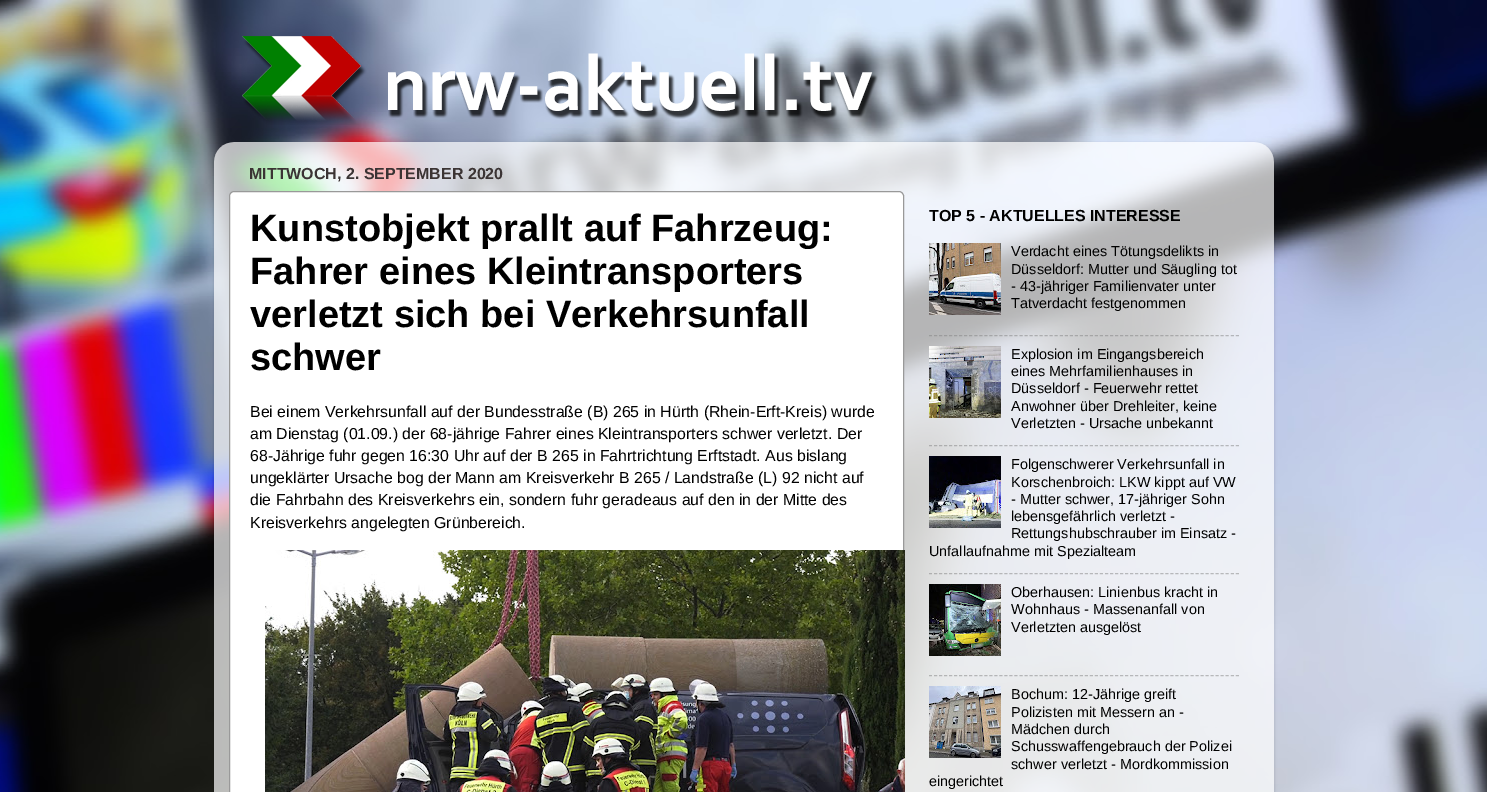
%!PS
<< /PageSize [1487 792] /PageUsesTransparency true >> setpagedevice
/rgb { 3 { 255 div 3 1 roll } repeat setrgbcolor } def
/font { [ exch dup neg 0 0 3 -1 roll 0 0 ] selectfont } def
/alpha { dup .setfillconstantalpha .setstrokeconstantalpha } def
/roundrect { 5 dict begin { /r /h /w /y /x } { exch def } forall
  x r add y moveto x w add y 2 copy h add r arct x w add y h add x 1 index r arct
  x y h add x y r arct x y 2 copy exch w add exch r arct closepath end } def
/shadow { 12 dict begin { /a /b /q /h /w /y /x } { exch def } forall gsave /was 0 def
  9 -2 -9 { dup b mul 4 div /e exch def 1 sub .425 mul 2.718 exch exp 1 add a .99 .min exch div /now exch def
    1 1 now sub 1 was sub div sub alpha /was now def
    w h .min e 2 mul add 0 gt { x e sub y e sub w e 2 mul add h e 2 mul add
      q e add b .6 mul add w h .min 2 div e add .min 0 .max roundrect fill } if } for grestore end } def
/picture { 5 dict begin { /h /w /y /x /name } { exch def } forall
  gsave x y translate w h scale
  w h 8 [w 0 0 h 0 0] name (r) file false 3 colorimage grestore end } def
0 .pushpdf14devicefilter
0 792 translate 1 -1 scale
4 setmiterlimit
255 255 255 rgb
0 0 1487 792 rectfill
(img/1.rgb) 0 0 1487 792 picture
(img/2.rgb) 242 36 636 89 picture
gsave
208 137 moveto 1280 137 lineto 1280 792 lineto 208 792 lineto closepath 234 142 moveto 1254 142 lineto 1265 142 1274 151 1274 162 curveto 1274 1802 lineto 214 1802 lineto 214 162 lineto 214 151 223 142 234 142 curveto closepath eoclip newpath
0 0 0 rgb
214 143 1060 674 20 1.5 0.15 shadow
grestore
(img/3.rgb) 214 142 1060 650 picture
229.5 191.5 674 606 4.5 roundrect gsave fill grestore
153 153 153 rgb
stroke
(img/4.rgb) 265 550 640 242 picture
(img/5.rgb) 929 243 72 72 picture
0.5 alpha
128 128 128 rgb
[3 2.03] 0 setdash
929 335.5 moveto 1239 335.5 lineto stroke
1 alpha
(img/6.rgb) 929 346 72 72 picture
0.5 alpha
929 445.5 moveto 1239 445.5 lineto stroke
1 alpha
(img/7.rgb) 929 456 72 72 picture
0.5 alpha
929 573.5 moveto 1239 573.5 lineto stroke
1 alpha
(img/8.rgb) 929 584 72 72 picture
0.5 alpha
929 675.5 moveto 1239 675.5 lineto stroke
1 alpha
(img/9.rgb) 929 686 72 72 picture
/LiberationSans-Bold 16 font
59 52 52 rgb
249 179 moveto (MITTWOCH, 2. SEPTEMBER 2020) show
/LiberationSans-Bold 38 font
0 0 0 rgb
[
  [(Kunstobjekt prallt auf Fahrzeug:) 250 241]
  [(Fahrer eines Kleintransporters) 250 284]
  [(verletzt sich bei Verkehrsunfall) 250 327]
  [(schwer) 250 370]
] { aload pop moveto show } forall
/LiberationSans-Regular 15.85 font
[
  [(Bei einem Verkehrsunfall auf der Bundesstraße \(B\) 265 in Hürth \(Rhein-Erft-Kreis\) wurde) 250 417]
  [(am Dienstag \(01.09.\) der 68-jährige Fahrer eines Kleintransporters schwer verletzt. Der) 250 439]
  [(68-Jährige fuhr gegen 16:30 Uhr auf der B 265 in Fahrtrichtung Erftstadt. Aus bislang) 250 461]
  [(ungeklärter Ursache bog der Mann am Kreisverkehr B 265 / Landstraße \(L\) 92 nicht auf) 250 483]
  [(die Fahrbahn des Kreisverkehrs ein, sondern fuhr geradeaus auf den in der Mitte des) 250 505]
  [(Kreisverkehrs angelegten Grünbereich.) 250 528]
] { aload pop moveto show } forall
/LiberationSans-Bold 16 font
929 221 moveto (TOP 5 - AKTUELLES INTERESSE) show
/LiberationSans-Regular 14.4 font
[
  [(Verdacht eines Tötungsdelikts in) 1011 256]
  [(Düsseldorf: Mutter und Säugling tot) 1011 274]
  [(- 43-jähriger Familienvater unter) 1011 291]
  [(Tatverdacht festgenommen) 1011 308]
  [(Explosion im Eingangsbereich) 1011 359]
  [(eines Mehrfamilienhauses in) 1011 376]
  [(Düsseldorf - Feuerwehr rettet) 1011 393]
  [(Anwohner über Drehleiter, keine) 1011 411]
  [(Verletzten - Ursache unbekannt) 1011 428]
  [(Folgenschwerer Verkehrsunfall in) 1011 469]
  [(Korschenbroich: LKW kippt auf VW) 1011 487]
  [(- Mutter schwer, 17-jähriger Sohn) 1011 504]
  [(lebensgefährlich verletzt -) 1011 521]
  [(Rettungshubschrauber im Einsatz -) 1011 538]
  [(Unfallaufnahme mit Spezialteam) 929 556]
  [(Oberhausen: Linienbus kracht in) 1011 597]
  [(Wohnhaus - Massenanfall von) 1011 614]
  [(Verletzten ausgelöst) 1011 632]
  [(Bochum: 12-Jährige greift) 1011 699]
  [(Polizisten mit Messern an -) 1011 717]
  [(Mädchen durch) 1011 734]
  [(Schusswaffengebrauch der Polizei) 1011 751]
  [(schwer verletzt - Mordkommission) 1011 769]
  [(eingerichtet) 929 786]
] { aload pop moveto show } forall
.poppdf14devicefilter showpage
